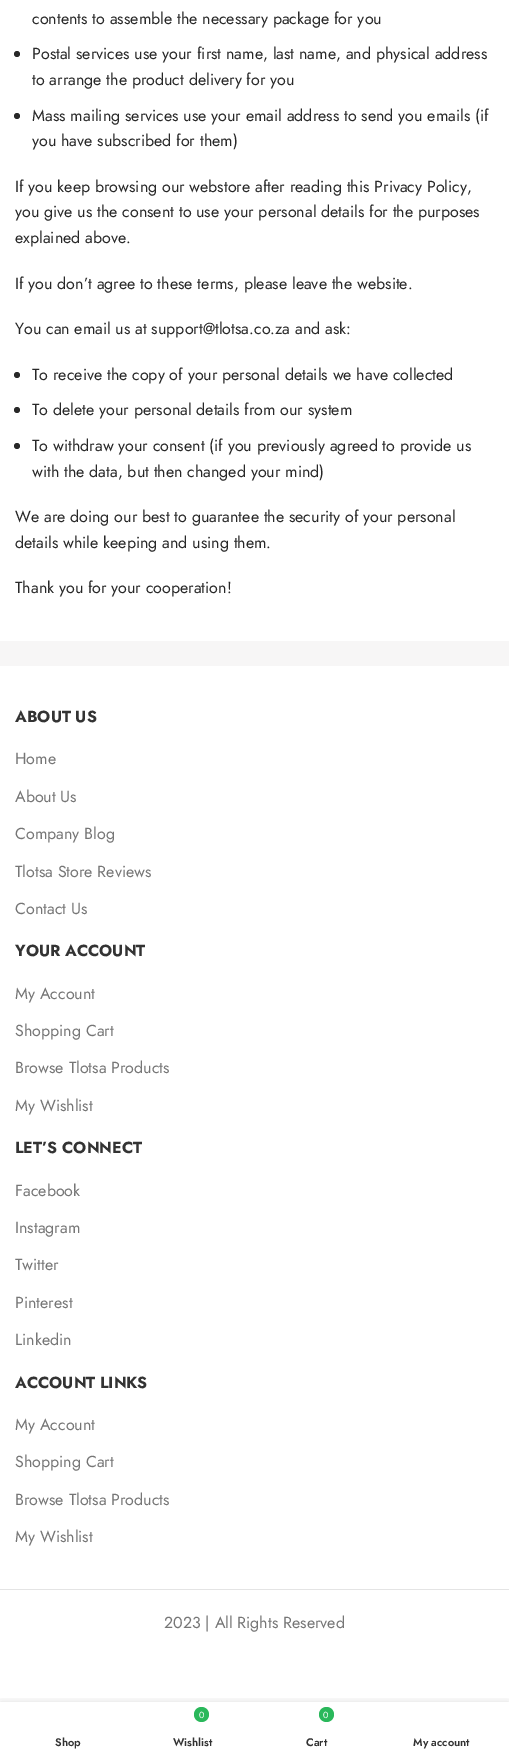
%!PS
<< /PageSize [509 1757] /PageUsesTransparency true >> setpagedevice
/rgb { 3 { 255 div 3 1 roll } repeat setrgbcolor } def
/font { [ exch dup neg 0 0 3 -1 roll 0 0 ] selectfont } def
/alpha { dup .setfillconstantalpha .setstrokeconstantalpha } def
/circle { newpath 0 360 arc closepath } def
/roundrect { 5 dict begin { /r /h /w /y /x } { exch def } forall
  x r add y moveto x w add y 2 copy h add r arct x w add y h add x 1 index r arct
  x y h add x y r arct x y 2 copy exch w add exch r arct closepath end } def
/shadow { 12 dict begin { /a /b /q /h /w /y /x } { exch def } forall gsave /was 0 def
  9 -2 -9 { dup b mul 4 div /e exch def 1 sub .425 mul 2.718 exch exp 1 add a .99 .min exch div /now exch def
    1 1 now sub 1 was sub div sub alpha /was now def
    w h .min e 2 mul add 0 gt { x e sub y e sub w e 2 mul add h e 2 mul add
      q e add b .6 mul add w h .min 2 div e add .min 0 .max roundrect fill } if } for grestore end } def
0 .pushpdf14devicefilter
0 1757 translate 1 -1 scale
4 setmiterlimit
255 255 255 rgb
0 0 509 1757 rectfill
40 40 40 rgb
17 54 3 circle fill
17 116 3 circle fill
17 375 3 circle fill
17 410 3 circle fill
17 446 3 circle fill
247 246 246 rgb
0 641 509 25 rectfill
228 228 228 rgb
0 1589 509 1 rectfill
gsave
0 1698 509 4 rectclip
0 0 0 rgb
0 1702 509 55 0 4.5 0.12 shadow
grestore
42 184 91 rgb
201.5 1714.5 7.5 circle fill
326.5 1714.5 7.5 circle fill
/Jost-Regular 16 font
40 40 40 rgb
[
  [(contents to assemble the necessary package for you) 32 24]
  [(Postal services use your first name, last name, and physical address) 32 59]
  [(to arrange the product delivery for you) 32 85]
  [(Mass mailing services use your email address to send you emails \(if) 32 121]
  [(you have subscribed for them\)) 32 146]
  [(If you keep browsing our webstore after reading this Privacy Policy,) 15 192]
  [(you give us the consent to use your personal details for the purposes) 15 217]
  [(explained above.) 15 243]
  [(If you don’t agree to these terms, please leave the website.) 15 289]
  [(You can email us at support@tlotsa.co.za and ask:) 15 334]
  [(To receive the copy of your personal details we have collected) 32 380]
  [(To delete your personal details from our system) 32 415]
  [(To withdraw your consent \(if you previously agreed to provide us) 32 451]
  [(with the data, but then changed your mind\)) 32 477]
  [(We are doing our best to guarantee the security of your personal) 15 522]
  [(details while keeping and using them.) 15 548]
  [(Thank you for your cooperation!) 15 593]
] { aload pop moveto show } forall
/Jost-Bold 16 font
51 51 51 rgb
15 722 moveto (ABOUT US) show
/Jost-Regular 16 font
118 118 118 rgb
[
  [(Home) 15 764]
  [(About Us) 15 802]
  [(Company Blog) 15 839]
  [(Tlotsa Store Reviews) 15 877]
  [(Contact Us) 15 914]
] { aload pop moveto show } forall
/Jost-Bold 16 font
51 51 51 rgb
15 956 moveto (YOUR ACCOUNT) show
/Jost-Regular 16 font
118 118 118 rgb
[
  [(My Account) 15 999]
  [(Shopping Cart) 15 1036]
  [(Browse Tlotsa Products) 15 1073]
  [(My Wishlist) 15 1111]
] { aload pop moveto show } forall
/Jost-Bold 16 font
51 51 51 rgb
15 1153 moveto (LET’S CONNECT) show
/Jost-Regular 16 font
118 118 118 rgb
[
  [(Facebook) 15 1196]
  [(Instagram) 15 1233]
  [(Twitter) 15 1270]
  [(Pinterest) 15 1308]
  [(Linkedin) 15 1345]
] { aload pop moveto show } forall
/Jost-Bold 16 font
51 51 51 rgb
15 1388 moveto (ACCOUNT LINKS) show
/Jost-Regular 16 font
118 118 118 rgb
[
  [(My Account) 15 1430]
  [(Shopping Cart) 15 1467]
  [(Browse Tlotsa Products) 15 1505]
  [(My Wishlist) 15 1542]
  [(2023 | All Rights Reserved) 164 1628]
] { aload pop moveto show } forall
/Jost-SemiBold 11 font
51 51 51 rgb
55 1746 moveto (Shop) show
/Jost-Regular 9 font
255 255 255 rgb
199 1718 moveto (0) show
/Jost-SemiBold 11 font
51 51 51 rgb
173 1746 moveto (Wishlist) show
/Jost-Regular 9 font
255 255 255 rgb
323 1718 moveto (0) show
/Jost-SemiBold 11 font
51 51 51 rgb
306 1746 moveto (Cart) show
413 1746 moveto (My account) show
.poppdf14devicefilter showpage
